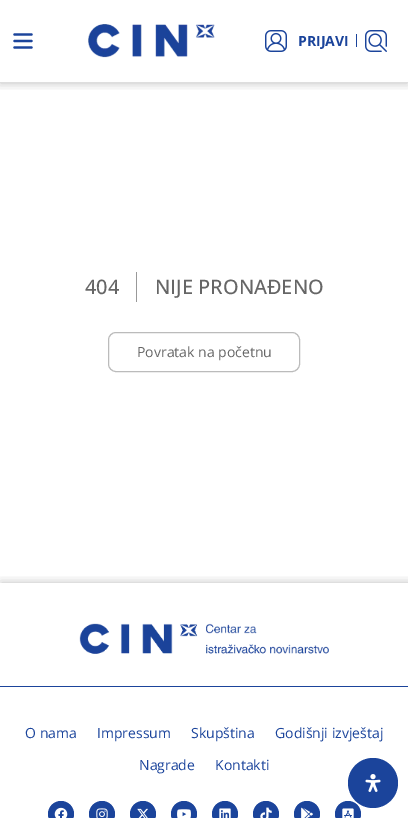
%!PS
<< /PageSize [408 818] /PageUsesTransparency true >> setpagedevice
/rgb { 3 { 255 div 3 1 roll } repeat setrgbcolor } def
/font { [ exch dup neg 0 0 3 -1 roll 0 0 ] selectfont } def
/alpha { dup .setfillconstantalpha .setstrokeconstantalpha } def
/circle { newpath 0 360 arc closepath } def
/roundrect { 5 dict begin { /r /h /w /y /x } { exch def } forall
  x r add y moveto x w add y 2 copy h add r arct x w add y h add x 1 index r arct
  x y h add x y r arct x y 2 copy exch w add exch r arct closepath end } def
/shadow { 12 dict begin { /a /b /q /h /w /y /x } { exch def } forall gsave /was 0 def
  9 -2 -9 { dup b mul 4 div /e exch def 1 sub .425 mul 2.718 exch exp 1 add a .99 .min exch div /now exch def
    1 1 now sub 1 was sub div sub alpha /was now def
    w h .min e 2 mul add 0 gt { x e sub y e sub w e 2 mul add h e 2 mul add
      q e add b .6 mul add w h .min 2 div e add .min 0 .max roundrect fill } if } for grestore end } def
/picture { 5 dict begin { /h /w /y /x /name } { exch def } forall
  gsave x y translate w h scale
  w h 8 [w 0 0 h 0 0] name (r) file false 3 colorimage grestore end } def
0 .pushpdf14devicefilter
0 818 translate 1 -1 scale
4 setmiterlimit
255 255 255 rgb
0 0 408 818 rectfill
gsave
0 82 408 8 rectclip
0 0 0 rgb
0 1 408 82 0 5 0.25 shadow
grestore
27 68 155 rgb
2.2 setlinewidth
1 setlinecap
1 setlinejoin
14.5 34.5 moveto 31.5 34.5 lineto 14.5 41 moveto 31.5 41 lineto 14.5 47.5 moveto 31.5 47.5 lineto stroke
(img/1.rgb) 88 24 127 34 picture
(img/2.rgb) 265 30 22 22 picture
356 34 1 13 rectfill
(img/3.rgb) 365 30 22 22 picture
153 153 153 rgb
136 272 1 30 rectfill
187 187 187 rgb
1 setlinewidth
0 setlinecap
0 setlinejoin
108.5 332.5 191 39 7.5 roundrect stroke
gsave
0 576 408 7 rectclip
0 0 0 rgb
1 583 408 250 0 5 0.25 shadow
grestore
(img/4.rgb) 79 623 250 31 picture
27 68 155 rgb
0 686 408 1 rectfill
61 814 13 circle fill
(img/5.rgb) 54 807 14 11 picture
102 814 13 circle fill
(img/6.rgb) 96 808 12 10 picture
143 814 13 circle fill
(img/7.rgb) 137 808 11 10 picture
184 814 13 circle fill
(img/8.rgb) 177 809 14 9 picture
225 814 13 circle fill
(img/9.rgb) 219 808 12 10 picture
266 814 13 circle fill
(img/10.rgb) 260 807 12 11 picture
307 814 13 circle fill
(img/11.rgb) 301 807 12 11 picture
348 814 13 circle fill
(img/12.rgb) 342 808 12 10 picture
373 783 25 circle fill
(img/13.rgb) 365 774 16 18 picture
/OpenSans-Bold 14 font
298 46 moveto (PRIJAVI) show
/OpenSans-Medium 20 font
102 102 102 rgb
85 294 moveto (404) show
155 294 moveto (NIJE PRONAĐENO) show
/OpenSans-Regular 14 font
137 357 moveto (Povratak na početnu) show
27 68 155 rgb
[
  [(O nama) 25 738]
  [(Impressum) 97 738]
  [(Skupština) 191 738]
  [(Godišnji izvještaj) 275 738]
  [(Nagrade) 139 770]
  [(Kontakti) 215 770]
] { aload pop moveto show } forall
.poppdf14devicefilter showpage
